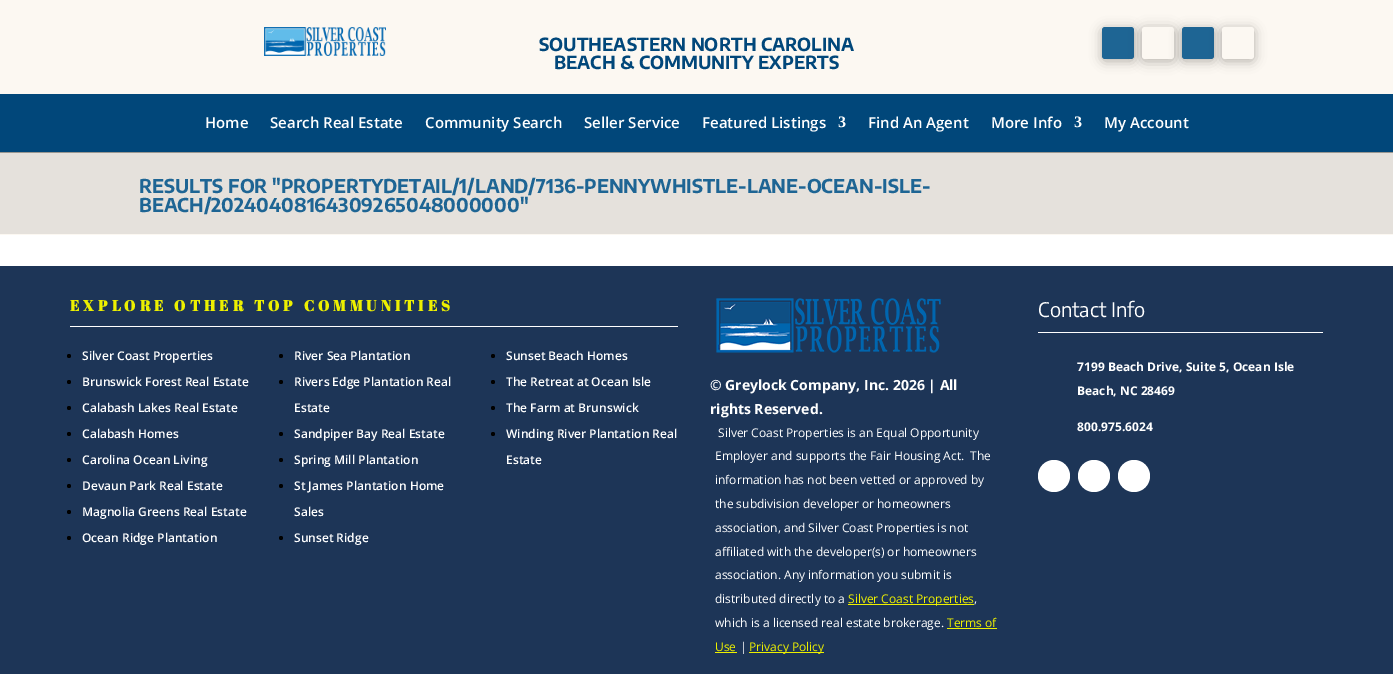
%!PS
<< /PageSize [1393 674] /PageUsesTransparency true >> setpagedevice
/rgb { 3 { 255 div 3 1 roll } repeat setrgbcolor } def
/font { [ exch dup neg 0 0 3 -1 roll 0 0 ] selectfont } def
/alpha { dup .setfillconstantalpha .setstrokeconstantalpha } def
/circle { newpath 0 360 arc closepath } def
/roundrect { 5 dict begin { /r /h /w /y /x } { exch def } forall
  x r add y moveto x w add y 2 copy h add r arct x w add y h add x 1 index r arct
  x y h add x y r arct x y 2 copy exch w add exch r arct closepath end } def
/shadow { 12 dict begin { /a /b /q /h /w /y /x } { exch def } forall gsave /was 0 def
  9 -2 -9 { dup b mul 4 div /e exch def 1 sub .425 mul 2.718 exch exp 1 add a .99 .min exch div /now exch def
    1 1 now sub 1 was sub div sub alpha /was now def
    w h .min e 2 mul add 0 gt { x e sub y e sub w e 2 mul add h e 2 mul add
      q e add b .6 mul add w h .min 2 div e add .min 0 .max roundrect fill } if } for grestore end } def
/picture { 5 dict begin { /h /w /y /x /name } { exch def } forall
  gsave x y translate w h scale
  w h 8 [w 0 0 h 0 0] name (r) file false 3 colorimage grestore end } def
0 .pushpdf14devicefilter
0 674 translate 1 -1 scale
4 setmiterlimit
255 255 255 rgb
0 0 1393 674 rectfill
252 248 242 rgb
0 0 1393 94 rectfill
(img/1.rgb) 264 27 122 29 picture
0 0 0 rgb
1102 29 32 32 3 6 0.3 shadow
30 101 148 rgb
1102 27 32 32 3 roundrect fill
0 0 0 rgb
1142 29 32 32 3 6.5 0.3 shadow
252 248 242 rgb
1142 27 32 32 3 roundrect fill
0 0 0 rgb
1182 29 32 32 3 6 0.3 shadow
30 101 148 rgb
1182 27 32 32 3 roundrect fill
0 0 0 rgb
1222 29 32 32 3 6 0.3 shadow
252 248 242 rgb
1222 27 32 32 3 roundrect fill
[
  [0 94 1393 58 1 71 122]
  [0 153 1393 81 229 225 220]
  [0 152 1393 1 153 151 145]
  [0 234 1393 1 252 248 242]
  [0 266 1393 408 29 53 87]
  [70 326 608 1 255 255 255]
] { aload pop rgb rectfill } forall
0 0 0 rgb
69 356 2 circle fill
281 356 2 circle fill
493 356 2 circle fill
69 382 2 circle fill
281 382 2 circle fill
493 382 2 circle fill
69 408 2 circle fill
493 408 2 circle fill
69 434 2 circle fill
281 434 2 circle fill
493 434 2 circle fill
69 460 2 circle fill
281 460 2 circle fill
69 486 2 circle fill
281 486 2 circle fill
69 512 2 circle fill
69 538 2 circle fill
281 538 2 circle fill
(img/2.rgb) 716 298 225 55 picture
[
  [848 604 126 1 237 240 0]
  [947 628 50 1 237 240 0]
  [715 652 22 1 237 240 0]
  [749 652 75 1 237 240 0]
  [1038 332 285 1 255 255 255]
] { aload pop rgb rectfill } forall
1054 476 16 circle fill
1094 476 16 circle fill
1134 476 16 circle fill
/EncodeSansCondensed-Bold 18 font
1 71 122 rgb
539 51 moveto (SOUTHEASTERN NORTH CAROLINA) show
554 69 moveto (BEACH & COMMUNITY EXPERTS) show
/OpenSans-SemiBold 15 font
255 255 255 rgb
[
  [(Home) 205 128]
  [(Search Real Estate) 270 128]
  [(Community Search) 425 128]
  [(Seller Service) 584 128]
  [(Featured Listings) 702 128]
] { aload pop moveto show } forall
/LiberationSerif-Bold 16 font
838 127 moveto (3) show
/OpenSans-SemiBold 15 font
868 128 moveto (Find An Agent) show
991 128 moveto (More Info) show
/LiberationSerif-Bold 16 font
1074 127 moveto (3) show
/OpenSans-SemiBold 15 font
1104 128 moveto (My Account) show
/EncodeSansCondensed-Bold 19 font
30 101 148 rgb
139 193 moveto (RESULTS FOR "PROPERTYDETAIL/1/LAND/7136-PENNYWHISTLE-LANE-OCEAN-ISLE-) show
139 212 moveto (BEACH/20240408164309265048000000") show
/AbrilFatface-Bold 15 font
237 240 0 rgb
70 311 moveto 4 0 (EXPLORE OTHER TOP COMMUNITIES) ashow
/OpenSans-SemiBold 12 font
255 255 255 rgb
[
  [(Silver Coast Properties) 82 360]
  [(River Sea Plantation) 294 360]
  [(Sunset Beach Homes) 506 360]
  [(Brunswick Forest Real Estate) 82 386]
  [(Rivers Edge Plantation Real) 294 386]
  [(Estate) 294 412]
  [(The Retreat at Ocean Isle) 506 386]
  [(Calabash Lakes Real Estate) 82 412]
  [(The Farm at Brunswick) 506 412]
  [(Calabash Homes) 82 438]
  [(Sandpiper Bay Real Estate) 294 438]
  [(Winding River Plantation Real) 506 438]
  [(Estate) 506 464]
  [(Carolina Ocean Living) 82 464]
  [(Spring Mill Plantation) 294 464]
  [(Devaun Park Real Estate) 82 490]
  [(St James Plantation Home) 294 490]
  [(Sales) 294 516]
  [(Magnolia Greens Real Estate) 82 516]
  [(Ocean Ridge Plantation) 82 542]
  [(Sunset Ridge) 294 542]
] { aload pop moveto show } forall
/OpenSans-Bold 14 font
710 390 moveto (© Greylock Company, Inc. 2026 | All) show
710 414 moveto (rights Reserved.) show
/OpenSans-Regular 12 font
[
  [(Silver Coast Properties is an Equal Opportunity) 718 437]
  [(Employer and supports the Fair Housing Act.  The) 715 460]
  [(information has not been vetted or approved by) 715 484]
  [(the subdivision developer or homeowners) 715 508]
  [(association, and Silver Coast Properties is not) 715 532]
  [(affiliated with the developer\(s\) or homeowners) 715 556]
  [(association. Any information you submit is) 715 579]
  [(distributed directly to a) 715 603]
] { aload pop moveto show } forall
237 240 0 rgb
848 603 moveto (Silver Coast Properties) show
255 255 255 rgb
974 603 moveto (,) show
715 627 moveto (which is a licensed real estate brokerage.) show
237 240 0 rgb
947 627 moveto (Terms of) show
715 651 moveto (Use) show
255 255 255 rgb
740 651 moveto (|) show
237 240 0 rgb
749 651 moveto (Privacy Policy) show
/EncodeSansCondensed-Regular 20 font
255 255 255 rgb
1038 317 moveto (Contact Info) show
/OpenSans-Bold 12 font
[
  [(7199 Beach Drive, Suite 5, Ocean Isle) 1077 371]
  [(Beach, NC 28469) 1077 395]
  [(800.975.6024) 1077 431]
] { aload pop moveto show } forall
.poppdf14devicefilter showpage
